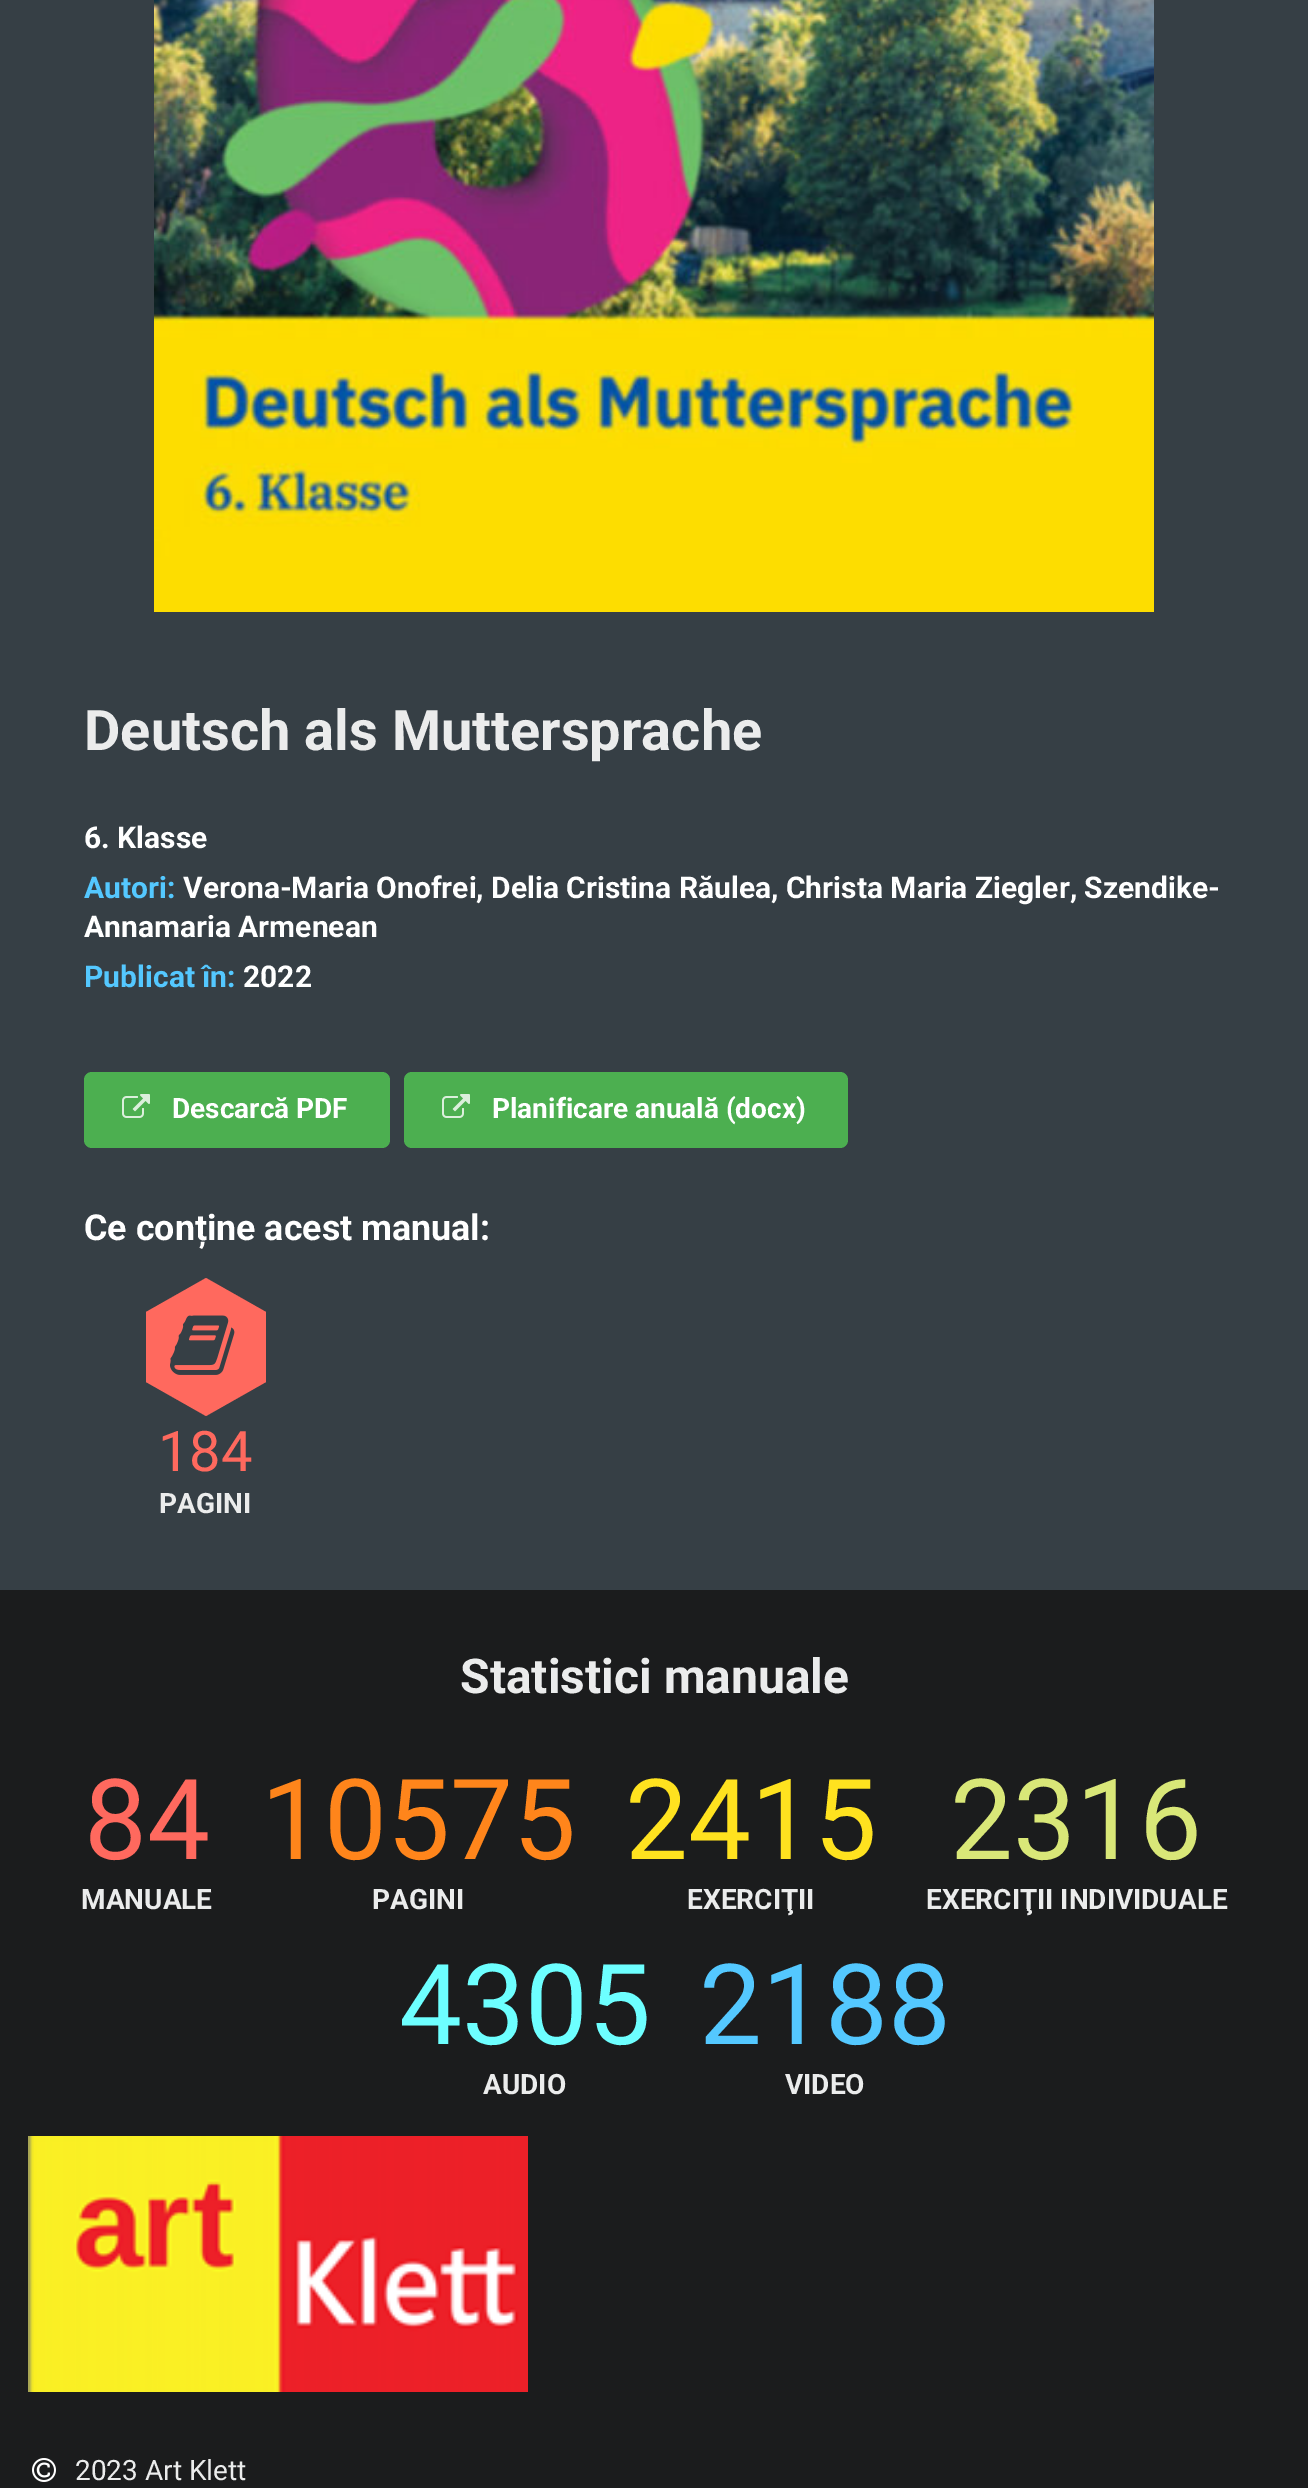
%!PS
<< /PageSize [1308 2488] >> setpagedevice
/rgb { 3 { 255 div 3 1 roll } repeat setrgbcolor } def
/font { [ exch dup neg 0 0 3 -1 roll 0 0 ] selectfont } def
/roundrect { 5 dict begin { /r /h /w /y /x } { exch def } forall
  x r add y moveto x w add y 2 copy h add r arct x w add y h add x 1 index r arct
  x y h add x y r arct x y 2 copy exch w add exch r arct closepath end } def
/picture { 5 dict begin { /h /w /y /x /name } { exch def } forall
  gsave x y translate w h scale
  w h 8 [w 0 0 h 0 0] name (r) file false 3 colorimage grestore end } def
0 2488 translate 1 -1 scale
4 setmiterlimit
54 63 69 rgb
0 0 1308 2488 rectfill
(img/1.rgb) 154 0 1000 612 picture
76 175 80 rgb
84 1072 306 76 8 roundrect fill
(img/2.rgb) 122 1094 28 24 picture
404 1072 444 76 8 roundrect fill
(img/2.rgb) 442 1094 28 24 picture
255 105 94 rgb
146 1312 120 70 rectfill
266 1312 moveto 146 1312 lineto 206 1278 lineto closepath fill
(img/3.rgb) 170 1315 65 60 picture
146 1382 moveto 266 1382 lineto 206 1416 lineto closepath fill
27 28 29 rgb
0 1590 1308 898 rectfill
(img/4.rgb) 28 2136 500 256 picture
(img/5.rgb) 32 2458 24 24 picture
/Roboto-Bold 56 font
235 236 236 rgb
84 750 moveto (Deutsch als Muttersprache) show
/Roboto-Bold 30 font
255 255 255 rgb
84 848 moveto (6. Klasse) show
84 200 255 rgb
84 898 moveto (Autori:) show
255 255 255 rgb
183 898 moveto (Verona-Maria Onofrei, Delia Cristina Răulea, Christa Maria Ziegler, Szendike-) show
84 937 moveto (Annamaria Armenean) show
84 200 255 rgb
84 987 moveto (Publicat în:) show
255 255 255 rgb
243 987 moveto (2022) show
/Roboto-Bold 28 font
172 1118 moveto (Descarcă PDF) show
492 1118 moveto (Planificare anuală \(docx\)) show
/Roboto-Bold 35.8 font
84 1240 moveto (Ce conține acest manual:) show
/Roboto-Regular 56 font
255 105 94 rgb
158 1471 moveto (184) show
/Roboto-Bold 28 font
235 236 236 rgb
159 1513 moveto (PAGINI) show
/Roboto-Bold 48 font
460 1693 moveto (Statistici manuale) show
/Roboto-Regular 112 font
255 105 94 rgb
84 1859 moveto (84) show
/Roboto-Bold 28 font
235 236 236 rgb
81 1909 moveto (MANUALE) show
/Roboto-Regular 112 font
255 133 27 rgb
261 1859 moveto (10575) show
/Roboto-Bold 28 font
235 236 236 rgb
372 1909 moveto (PAGINI) show
/Roboto-Regular 112 font
255 226 31 rgb
625 1859 moveto (2415) show
/Roboto-Bold 28 font
235 236 236 rgb
687 1909 moveto (EXERCIŢII) show
/Roboto-Regular 112 font
217 231 120 rgb
950 1859 moveto (2316) show
/Roboto-Bold 28 font
235 236 236 rgb
926 1909 moveto (EXERCIŢII INDIVIDUALE) show
/Roboto-Regular 112 font
109 255 255 rgb
399 2044 moveto (4305) show
/Roboto-Bold 28 font
235 236 236 rgb
483 2094 moveto (AUDIO) show
/Roboto-Regular 112 font
84 200 255 rgb
699 2044 moveto (2188) show
/Roboto-Bold 28 font
235 236 236 rgb
785 2094 moveto (VIDEO) show
/Roboto-Regular 28 font
75 2480 moveto (2023 Art Klett) show
showpage
